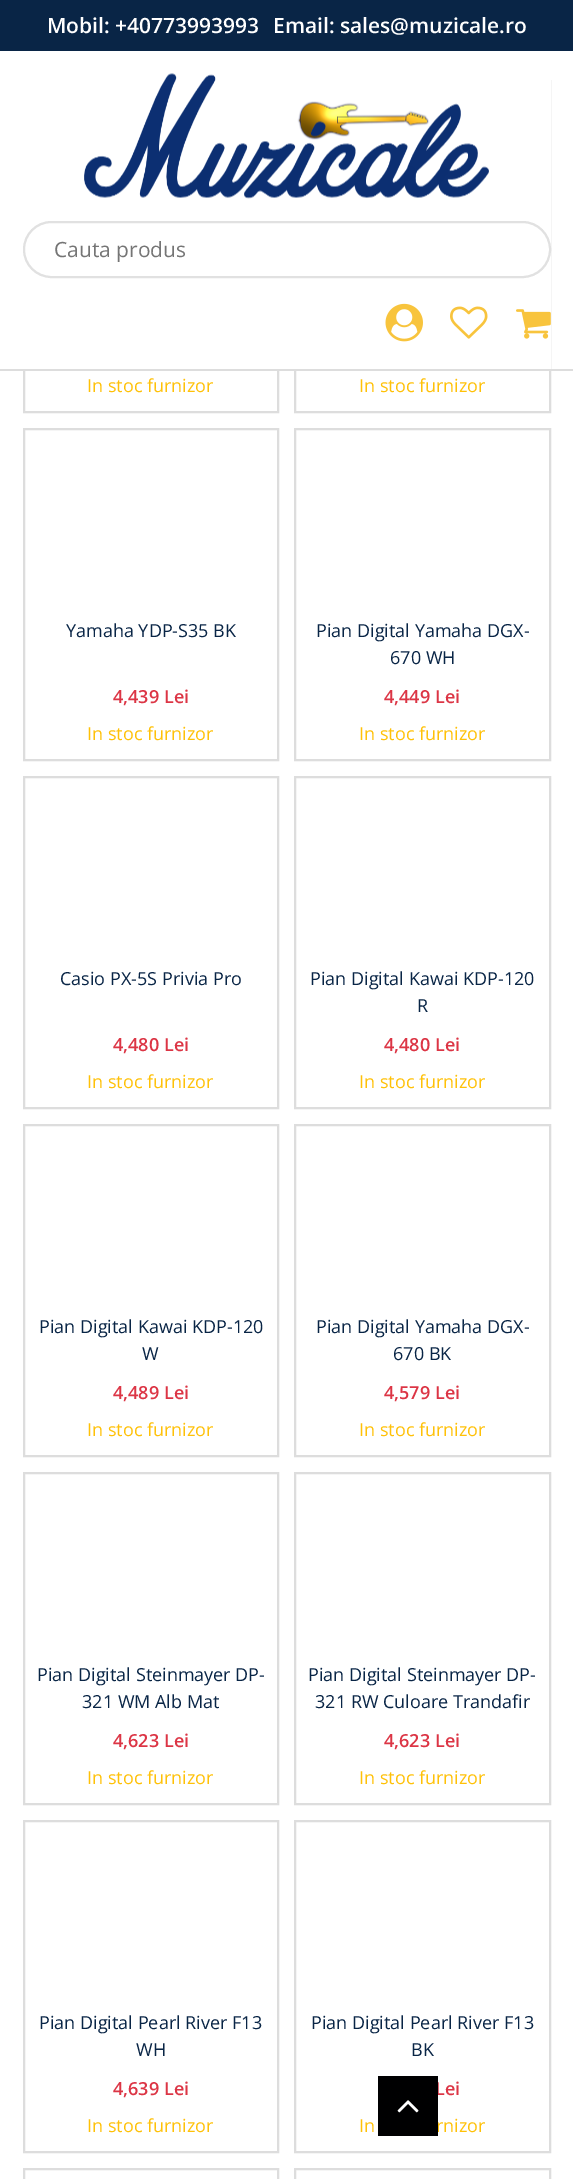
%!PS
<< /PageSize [573 2179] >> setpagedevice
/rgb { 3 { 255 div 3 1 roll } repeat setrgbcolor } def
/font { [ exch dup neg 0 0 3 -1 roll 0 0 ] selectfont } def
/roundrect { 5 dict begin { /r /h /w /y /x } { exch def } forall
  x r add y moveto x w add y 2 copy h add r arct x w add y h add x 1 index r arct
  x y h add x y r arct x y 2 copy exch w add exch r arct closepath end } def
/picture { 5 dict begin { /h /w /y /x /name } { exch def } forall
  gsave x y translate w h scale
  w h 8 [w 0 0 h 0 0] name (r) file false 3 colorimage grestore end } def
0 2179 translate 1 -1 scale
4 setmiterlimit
255 255 255 rgb
0 0 573 2179 rectfill
9 37 70 rgb
0 0 573 51 rectfill
221 221 221 rgb
2 setlinewidth
24 81 254 331 rectstroke
295 81 255 331 rectstroke
255 255 255 rgb
23 80 528 289 rectfill
(img/1.rgb) 84 73 405 126 picture
225 225 225 rgb
24 222 526 55 27.5 roundrect stroke
(img/2.rgb) 385 303 38 39 picture
(img/3.rgb) 450 306 38 33 picture
(img/4.rgb) 516 309 35 30 picture
221 221 221 rgb
0 369 573 2 rectfill
24 429 254 331 rectstroke
295 429 255 331 rectstroke
24 777 254 331 rectstroke
295 777 255 331 rectstroke
24 1125 254 331 rectstroke
295 1125 255 331 rectstroke
24 1473 254 331 rectstroke
295 1473 255 331 rectstroke
24 1821 254 331 rectstroke
295 1821 255 331 rectstroke
24 2169 254 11 rectstroke
295 2169 255 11 rectstroke
/OpenSans-SemiBold 21 font
255 255 255 rgb
47 33 moveto (Mobil: +40773993993) show
273 33 moveto (Email: sales@muzicale.ro) show
/OpenSans-Regular 21 font
117 117 117 rgb
54 257 moveto (Cauta produs) show
/OpenSans-Regular 18 font
255 193 7 rgb
87 392 moveto (In stoc furnizor) show
359 392 moveto (In stoc furnizor) show
9 37 70 rgb
66 637 moveto (Yamaha YDP-S35 BK) show
/OpenSans-SemiBold 18 font
220 53 69 rgb
113 703 moveto (4,439 Lei) show
/OpenSans-Regular 18 font
255 193 7 rgb
87 740 moveto (In stoc furnizor) show
9 37 70 rgb
316 637 moveto (Pian Digital Yamaha DGX-) show
390 664 moveto (670 WH) show
/OpenSans-SemiBold 18 font
220 53 69 rgb
384 703 moveto (4,449 Lei) show
/OpenSans-Regular 18 font
255 193 7 rgb
359 740 moveto (In stoc furnizor) show
9 37 70 rgb
60 985 moveto (Casio PX-5S Privia Pro) show
/OpenSans-SemiBold 18 font
220 53 69 rgb
113 1051 moveto (4,480 Lei) show
/OpenSans-Regular 18 font
255 193 7 rgb
87 1088 moveto (In stoc furnizor) show
9 37 70 rgb
310 985 moveto (Pian Digital Kawai KDP-120) show
417 1012 moveto (R) show
/OpenSans-SemiBold 18 font
220 53 69 rgb
384 1051 moveto (4,480 Lei) show
/OpenSans-Regular 18 font
255 193 7 rgb
359 1088 moveto (In stoc furnizor) show
9 37 70 rgb
39 1333 moveto (Pian Digital Kawai KDP-120) show
142 1360 moveto (W) show
/OpenSans-SemiBold 18 font
220 53 69 rgb
113 1399 moveto (4,489 Lei) show
/OpenSans-Regular 18 font
255 193 7 rgb
87 1436 moveto (In stoc furnizor) show
9 37 70 rgb
316 1333 moveto (Pian Digital Yamaha DGX-) show
393 1360 moveto (670 BK) show
/OpenSans-SemiBold 18 font
220 53 69 rgb
384 1399 moveto (4,579 Lei) show
/OpenSans-Regular 18 font
255 193 7 rgb
359 1436 moveto (In stoc furnizor) show
9 37 70 rgb
37 1681 moveto (Pian Digital Steinmayer DP-) show
82 1708 moveto (321 WM Alb Mat) show
/OpenSans-SemiBold 18 font
220 53 69 rgb
113 1747 moveto (4,623 Lei) show
/OpenSans-Regular 18 font
255 193 7 rgb
87 1784 moveto (In stoc furnizor) show
9 37 70 rgb
308 1681 moveto (Pian Digital Steinmayer DP-) show
315 1708 moveto (321 RW Culoare Trandafir) show
/OpenSans-SemiBold 18 font
220 53 69 rgb
384 1747 moveto (4,623 Lei) show
/OpenSans-Regular 18 font
255 193 7 rgb
359 1784 moveto (In stoc furnizor) show
9 37 70 rgb
39 2029 moveto (Pian Digital Pearl River F13) show
136 2056 moveto (WH) show
/OpenSans-SemiBold 18 font
220 53 69 rgb
113 2095 moveto (4,639 Lei) show
/OpenSans-Regular 18 font
255 193 7 rgb
87 2132 moveto (In stoc furnizor) show
9 37 70 rgb
311 2029 moveto (Pian Digital Pearl River F13) show
411 2056 moveto (BK) show
/OpenSans-SemiBold 18 font
220 53 69 rgb
435 2095 moveto (Lei) show
/OpenSans-Regular 18 font
255 193 7 rgb
359 2132 moveto (In) show
436 2132 moveto (rnizor) show
0 0 1 rgb
378 2076 60 60 rectfill
(img/5.rgb) 397 2100 22 13 picture
showpage
